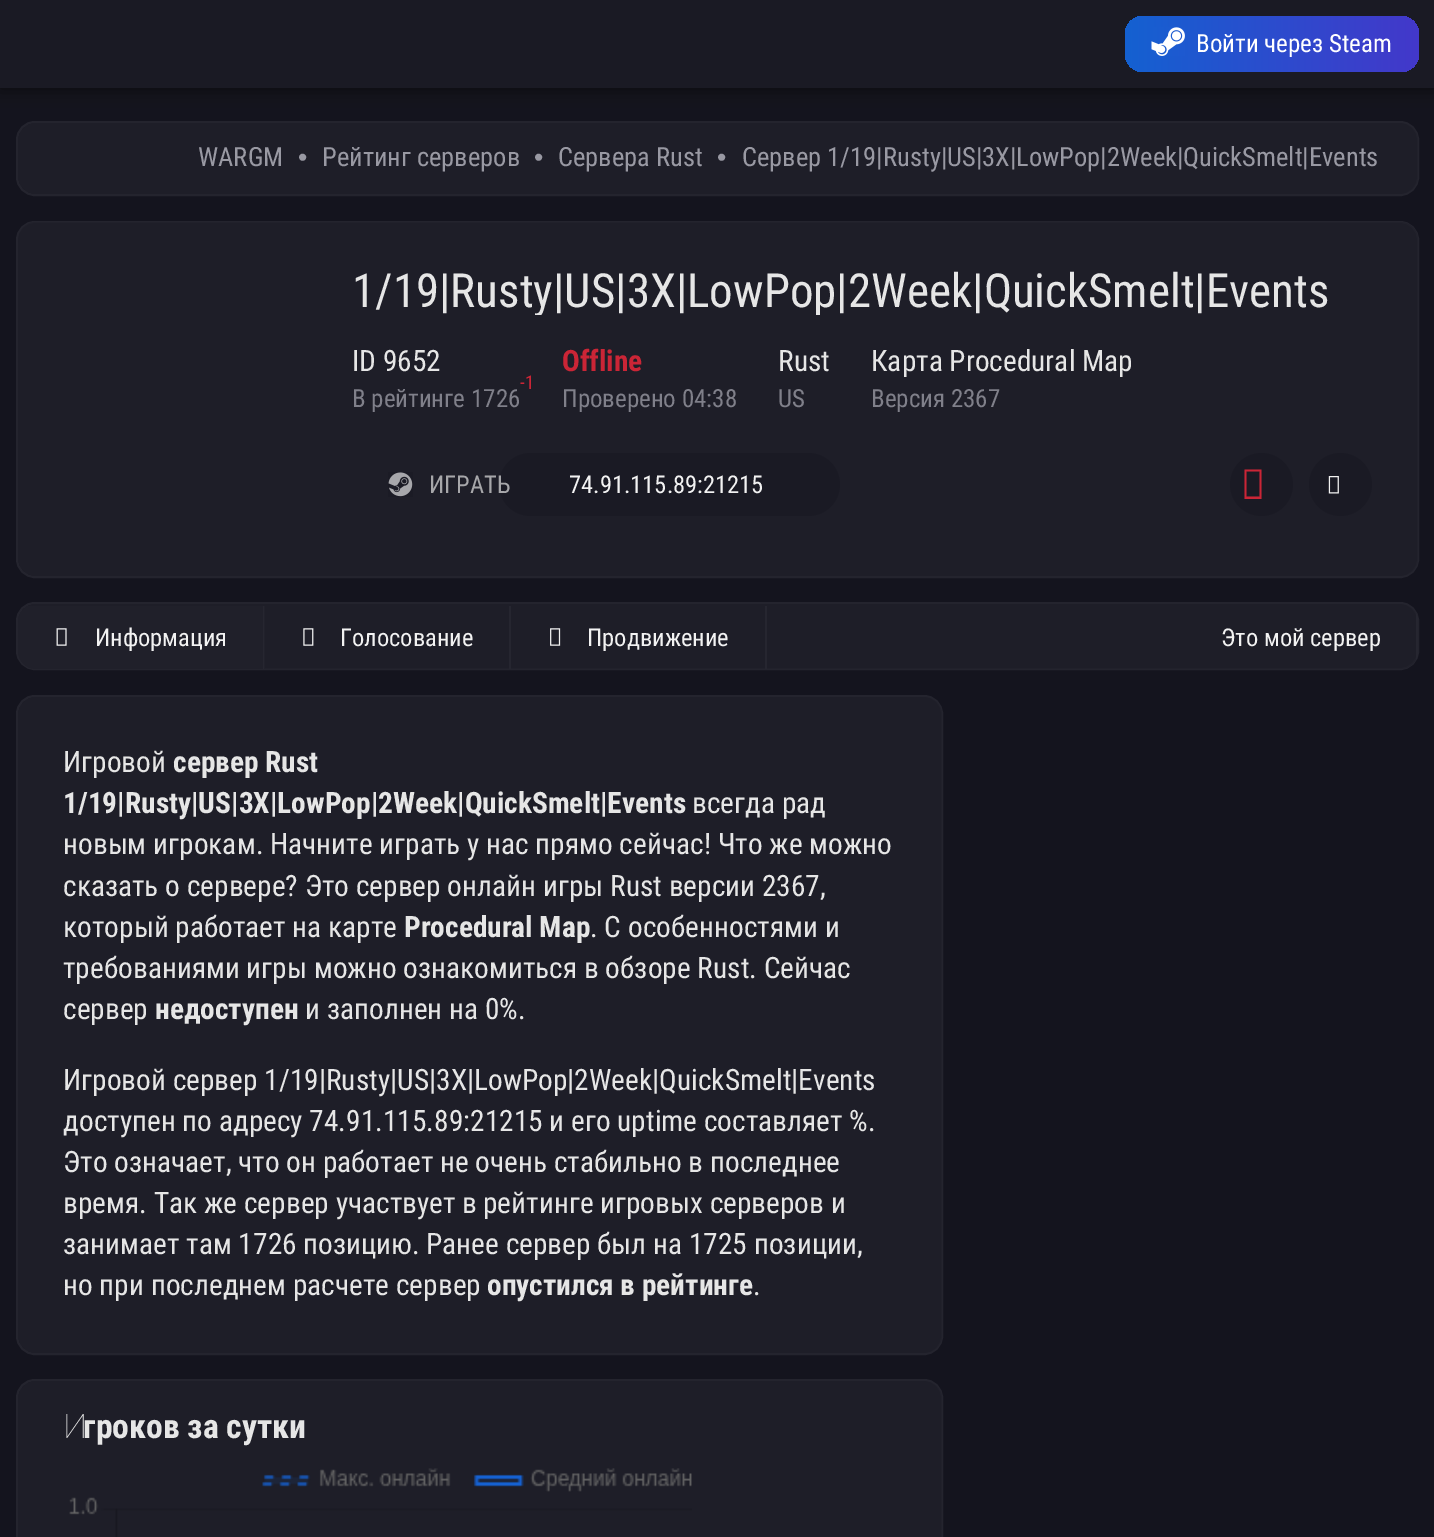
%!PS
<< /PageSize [1434 1537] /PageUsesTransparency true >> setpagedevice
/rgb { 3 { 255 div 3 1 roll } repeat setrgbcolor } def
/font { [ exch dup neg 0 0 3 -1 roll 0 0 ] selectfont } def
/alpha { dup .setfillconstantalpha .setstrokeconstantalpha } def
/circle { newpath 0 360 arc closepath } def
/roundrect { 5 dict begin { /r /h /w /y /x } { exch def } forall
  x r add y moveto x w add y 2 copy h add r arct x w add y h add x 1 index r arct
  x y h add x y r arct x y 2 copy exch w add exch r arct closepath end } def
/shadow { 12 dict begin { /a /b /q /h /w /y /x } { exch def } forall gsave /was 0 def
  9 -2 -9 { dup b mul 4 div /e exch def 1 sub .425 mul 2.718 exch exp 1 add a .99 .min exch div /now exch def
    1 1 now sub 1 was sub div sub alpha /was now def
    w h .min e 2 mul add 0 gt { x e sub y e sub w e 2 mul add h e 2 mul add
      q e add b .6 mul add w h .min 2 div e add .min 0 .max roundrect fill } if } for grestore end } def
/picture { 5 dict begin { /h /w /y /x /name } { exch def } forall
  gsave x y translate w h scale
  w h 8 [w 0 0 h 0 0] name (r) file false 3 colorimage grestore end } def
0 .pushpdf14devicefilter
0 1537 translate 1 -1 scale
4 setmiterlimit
20 20 30 rgb
0 0 1434 1537 rectfill
0 0 0 rgb
0 0 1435 88 0 9 0.6 shadow
26 26 36 rgb
0 0 1434 88 rectfill
gsave 1125 16 294 56 18 roundrect clip newpath
<< /ShadingType 2 /ColorSpace /DeviceRGB /Coords [1125 44 1419 44] /Extend [true true] /Function << /FunctionType 2 /Domain [0 1] /C0 [0.078 0.38 0.82] /C1 [0.263 0.22 0.792] /N 1 >> >> shfill grestore
(img/1.rgb) 1151 27 34 29 picture
36 36 46 rgb
2 setlinewidth
17 122 1401 73 18 roundrect stroke
0.8 alpha
32 32 42 rgb
18 123 1400 71 18 roundrect fill
1 alpha
36 36 46 rgb
17 222 1401 355 18 roundrect stroke
0.8 alpha
32 32 42 rgb
18 222 1400 354 18 roundrect fill
1 alpha
(img/2.rgb) 388 472 25 25 picture
26 26 36 rgb
499 453 341 63 31.5 roundrect fill
1261.5 484.5 31.5 circle fill
203 37 54 rgb
1244.5 499 moveto 1244.5 469.5 lineto 1261.5 469.5 lineto 1261.5 499 lineto closepath 1246.5 496.5 moveto 1259.5 496.5 lineto 1259.5 471.5 lineto 1246.5 471.5 lineto closepath fill
26 26 36 rgb
1340.5 484.5 31.5 circle fill
(img/3.rgb) 1328 476 11 18 picture
36 36 46 rgb
17 603 1401 66 18 roundrect stroke
0.8 alpha
32 32 42 rgb
18 604 1400 65 18 roundrect fill
gsave
18 604 1400 65 18 roundrect clip newpath
18 606 moveto 264 606 lineto 264 669 lineto 36 669 lineto 26 669 18 661 18 651 curveto closepath fill
grestore
1 alpha
38 38 48 rgb
263 606 2 63 rectfill
(img/4.rgb) 56 628 11 18 picture
0.8 alpha
32 32 42 rgb
264 606 1 63 rectfill
1 alpha
38 38 48 rgb
509 606 2 63 rectfill
(img/5.rgb) 303 628 11 18 picture
765 606 2 63 rectfill
(img/6.rgb) 550 628 11 18 picture
gsave
18 604 1400 65 18 roundrect clip newpath
1416 606 2 53 rectfill
grestore
36 36 46 rgb
17 696 925 658 18 roundrect stroke
0.8 alpha
32 32 42 rgb
18 697 924 656 18 roundrect fill
1 alpha
36 36 46 rgb
17 1380 925 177 18 roundrect stroke
0.8 alpha
32 32 42 rgb
18 1381 924 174 18 roundrect fill
1 alpha
(img/7.rgb) 69 1468 623 69 picture
/RobotoCondensed-Regular 25 font
255 255 255 rgb
1196 52 moveto (Войти через Steam) show
/RobotoCondensed-Regular 26.5 font
153 153 163 rgb
198 166 moveto (WARGM) show
/LiberationSans-Regular 26.5 font
298 166 moveto (•) show
/RobotoCondensed-Regular 26.5 font
322 166 moveto (Рейтинг серверов) show
/LiberationSans-Regular 26.5 font
534 166 moveto (•) show
/RobotoCondensed-Regular 26.5 font
558 166 moveto (Сервера Rust) show
/LiberationSans-Regular 26.5 font
717 166 moveto (•) show
/RobotoCondensed-Regular 26.5 font
742 166 moveto (Сервер 1/19|Rusty|US|3X|LowPop|2Week|QuickSmelt|Events) show
gsave
352 268 978 47 rectclip
/RobotoCondensed-Regular 47 font
230 230 230 rgb
352 307 moveto (1/19|Rusty|US|3X|LowPop|2Week|QuickSmelt|Events) show
grestore
/RobotoCondensed-Regular 29.4 font
230 230 230 rgb
352 371 moveto (ID 9652) show
/RobotoCondensed-Regular 19 font
203 37 54 rgb
520 389 moveto (-1) show
/RobotoCondensed-Regular 25 font
128 128 138 rgb
352 407 moveto (В рейтинге 1726) show
/RobotoCondensed-Bold 29.4 font
203 37 54 rgb
562 371 moveto (Offline) show
/RobotoCondensed-Regular 25 font
128 128 138 rgb
562 407 moveto (Проверено 04:38) show
/RobotoCondensed-Regular 29.4 font
230 230 230 rgb
778 371 moveto (Rust) show
/RobotoCondensed-Regular 25 font
128 128 138 rgb
778 407 moveto (US) show
/RobotoCondensed-Regular 29.4 font
230 230 230 rgb
871 371 moveto (Карта Procedural Map) show
/RobotoCondensed-Regular 25 font
128 128 138 rgb
871 407 moveto (Версия 2367) show
/RobotoCondensed-Regular 24.5 font
167 167 170 rgb
429 493 moveto (ИГРАТЬ) show
242 242 242 rgb
[
  [(74.91.115.89:21215) 569 493]
  [(Информация) 95 646]
  [(Голосование) 340 646]
  [(Продвижение) 587 646]
  [(Это мой сервер) 1221 646]
] { aload pop moveto show } forall
/RobotoCondensed-Regular 29.4 font
230 230 230 rgb
63 772 moveto (Игровой) show
/RobotoCondensed-Bold 29.4 font
173 772 moveto (сервер Rust) show
63 813 moveto (1/19|Rusty|US|3X|LowPop|2Week|QuickSmelt|Events) show
/RobotoCondensed-Regular 29.4 font
[
  [(всегда рад) 692 813]
  [(новым игрокам. Начните играть у нас прямо сейчас! Что же можно) 63 854]
  [(сказать о сервере? Это сервер онлайн игры Rust версии 2367,) 63 896]
  [(который работает на карте) 63 937]
] { aload pop moveto show } forall
/RobotoCondensed-Bold 29.4 font
404 937 moveto (Procedural Map) show
/RobotoCondensed-Regular 29.4 font
[
  [(. С особенностями и) 590 937]
  [(требованиями игры можно ознакомиться в обзоре Rust. Cейчас) 63 978]
  [(сервер) 63 1019]
] { aload pop moveto show } forall
/RobotoCondensed-Bold 29.4 font
155 1019 moveto (недоступен) show
/RobotoCondensed-Regular 29.4 font
[
  [(и заполнен на 0%.) 305 1019]
  [(Игровой сервер 1/19|Rusty|US|3X|LowPop|2Week|QuickSmelt|Events) 63 1090]
  [(доступен по адресу 74.91.115.89:21215 и его uptime составляет %.) 63 1131]
  [(Это означает, что он работает не очень стабильно в последнее) 63 1172]
  [(время. Так же сервер участвует в) 63 1213]
  [(рейтинге игровых серверов) 483 1213]
  [(и) 831 1213]
  [(занимает там 1726 позицию.) 63 1254]
  [(Ранее сервер был на 1725 позиции,) 426 1254]
  [(но при последнем расчете сервер) 63 1295]
] { aload pop moveto show } forall
/RobotoCondensed-Bold 29.4 font
487 1295 moveto (опустился в рейтинге) show
/RobotoCondensed-Regular 29.4 font
753 1295 moveto (.) show
/NotoSans-Thin 33.75 font
63 1438 moveto (И) show
/RobotoCondensed-Bold 33.75 font
83 1438 moveto (гроков за сутки) show
.poppdf14devicefilter showpage
